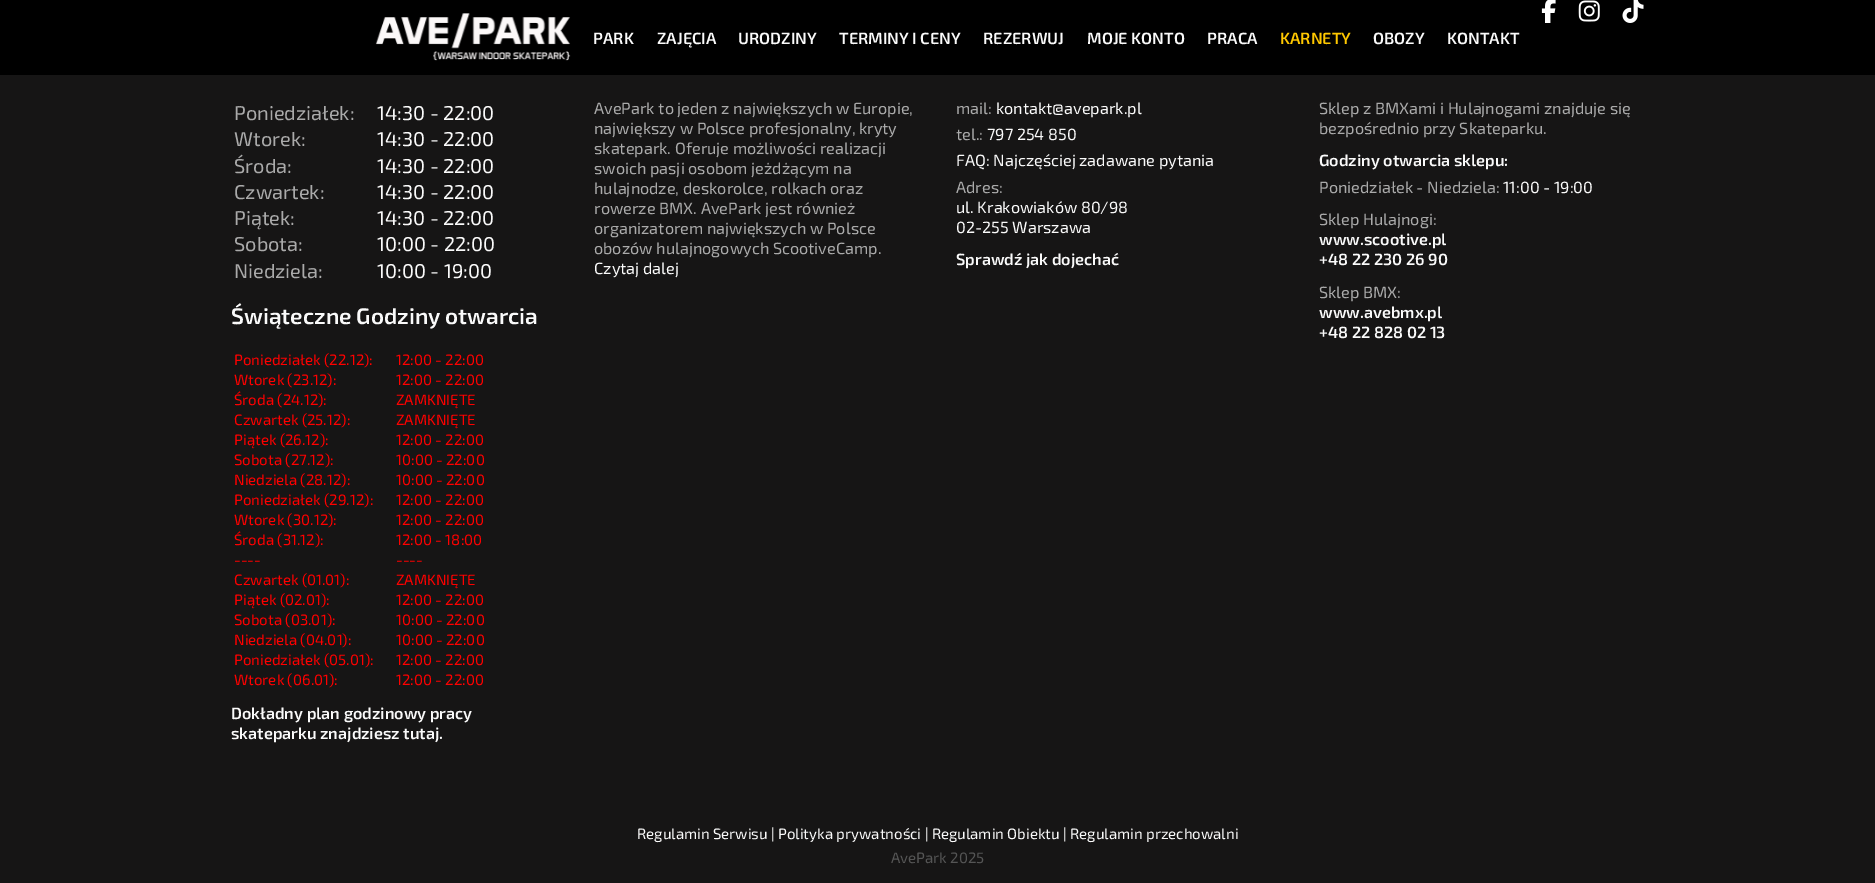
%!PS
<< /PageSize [1875 883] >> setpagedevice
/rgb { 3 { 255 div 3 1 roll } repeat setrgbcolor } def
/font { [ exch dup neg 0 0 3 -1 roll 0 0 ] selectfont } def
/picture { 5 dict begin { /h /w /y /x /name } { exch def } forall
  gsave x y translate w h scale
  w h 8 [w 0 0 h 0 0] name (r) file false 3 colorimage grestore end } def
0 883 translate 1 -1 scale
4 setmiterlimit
22 21 21 rgb
0 0 1875 883 rectfill
0 0 0 rgb
0 0 1875 75 rectfill
(img/1.rgb) 1541 0 15 23 picture
(img/2.rgb) 1578 0 22 22 picture
(img/3.rgb) 1622 0 22 23 picture
(img/4.rgb) 375 13 196 48 picture
/Exo2-SemiBold 16.25 font
250 250 250 rgb
[
  [(PARK) 593 44]
  [(ZAJĘCIA) 657 44]
  [(URODZINY) 738 44]
  [(TERMINY I CENY) 839 44]
  [(REZERWUJ) 983 44]
  [(MOJE KONTO) 1087 44]
  [(PRACA) 1207 44]
] { aload pop moveto show } forall
255 200 0 rgb
1280 44 moveto (KARNETY) show
250 250 250 rgb
1373 44 moveto (OBOZY) show
1447 44 moveto (KONTAKT) show
/Exo2-Regular 20 font
170 170 170 rgb
234 120 moveto (Poniedziałek:) show
250 250 250 rgb
377 120 moveto (14:30 - 22:00) show
170 170 170 rgb
234 146 moveto (Wtorek:) show
250 250 250 rgb
377 146 moveto (14:30 - 22:00) show
170 170 170 rgb
234 173 moveto (Środa:) show
250 250 250 rgb
377 173 moveto (14:30 - 22:00) show
170 170 170 rgb
234 199 moveto (Czwartek:) show
250 250 250 rgb
377 199 moveto (14:30 - 22:00) show
170 170 170 rgb
234 225 moveto (Piątek:) show
250 250 250 rgb
377 225 moveto (14:30 - 22:00) show
170 170 170 rgb
234 251 moveto (Sobota:) show
250 250 250 rgb
377 251 moveto (10:00 - 22:00) show
170 170 170 rgb
234 278 moveto (Niedziela:) show
250 250 250 rgb
377 278 moveto (10:00 - 19:00) show
/Exo2-SemiBold 22.5 font
231 324 moveto (Świąteczne Godziny otwarcia) show
/Exo2-Regular 15 font
255 0 0 rgb
[
  [(Poniedziałek \(22.12\):) 234 365]
  [(12:00 - 22:00) 396 365]
  [(Wtorek \(23.12\):) 234 385]
  [(12:00 - 22:00) 396 385]
  [(Środa \(24.12\):) 234 405]
  [(ZAMKNIĘTE) 396 405]
  [(Czwartek \(25.12\):) 234 425]
  [(ZAMKNIĘTE) 396 425]
  [(Piątek \(26.12\):) 234 445]
  [(12:00 - 22:00) 396 445]
  [(Sobota \(27.12\):) 234 465]
  [(10:00 - 22:00) 396 465]
  [(Niedziela \(28.12\):) 234 485]
  [(10:00 - 22:00) 396 485]
  [(Poniedziałek \(29.12\):) 234 505]
  [(12:00 - 22:00) 396 505]
  [(Wtorek \(30.12\):) 234 525]
  [(12:00 - 22:00) 396 525]
  [(Środa \(31.12\):) 234 545]
  [(12:00 - 18:00) 396 545]
  [(----) 234 565]
  [(----) 396 565]
  [(Czwartek \(01.01\):) 234 585]
  [(ZAMKNIĘTE) 396 585]
  [(Piątek \(02.01\):) 234 605]
  [(12:00 - 22:00) 396 605]
  [(Sobota \(03.01\):) 234 625]
  [(10:00 - 22:00) 396 625]
  [(Niedziela \(04.01\):) 234 645]
  [(10:00 - 22:00) 396 645]
  [(Poniedziałek \(05.01\):) 234 665]
  [(12:00 - 22:00) 396 665]
  [(Wtorek \(06.01\):) 234 685]
  [(12:00 - 22:00) 396 685]
] { aload pop moveto show } forall
/Exo2-SemiBold 16.25 font
250 250 250 rgb
231 719 moveto (Dokładny plan godzinowy pracy) show
231 739 moveto (skateparku znajdziesz tutaj.) show
/Exo2-Regular 16.25 font
170 170 170 rgb
[
  [(AvePark to jeden z największych w Europie,) 594 114]
  [(największy w Polsce profesjonalny, kryty) 594 134]
  [(skatepark. Oferuje możliwości realizacji) 594 154]
  [(swoich pasji osobom jeżdżącym na) 594 174]
  [(hulajnodze, deskorolce, rolkach oraz) 594 194]
  [(rowerze BMX. AvePark jest również) 594 214]
  [(organizatorem największych w Polsce) 594 234]
  [(obozów hulajnogowych ScootiveCamp.) 594 254]
] { aload pop moveto show } forall
250 250 250 rgb
594 274 moveto (Czytaj dalej) show
170 170 170 rgb
956 114 moveto (mail:) show
250 250 250 rgb
996 114 moveto (kontakt@avepark.pl) show
170 170 170 rgb
956 140 moveto (tel.:) show
250 250 250 rgb
987 140 moveto (797 254 850) show
956 166 moveto (FAQ: Najczęściej zadawane pytania) show
170 170 170 rgb
956 193 moveto (Adres:) show
250 250 250 rgb
956 213 moveto (ul. Krakowiaków 80/98) show
956 233 moveto (02-255 Warszawa) show
/Exo2-SemiBold 16.25 font
956 265 moveto (Sprawdź jak dojechać) show
/Exo2-Regular 16.25 font
170 170 170 rgb
1319 114 moveto (Sklep z BMXami i Hulajnogami znajduje się) show
1319 134 moveto (bezpośrednio przy Skateparku.) show
/Exo2-SemiBold 16.25 font
250 250 250 rgb
1319 166 moveto (Godziny otwarcia sklepu:) show
/Exo2-Regular 16.25 font
170 170 170 rgb
1319 193 moveto (Poniedziałek - Niedziela:) show
250 250 250 rgb
1503 193 moveto (11:00 - 19:00) show
170 170 170 rgb
1319 225 moveto (Sklep Hulajnogi:) show
/Exo2-SemiBold 16.25 font
250 250 250 rgb
1319 245 moveto (www.scootive.pl) show
1319 265 moveto (+48 22 230 26 90) show
/Exo2-Regular 16.25 font
170 170 170 rgb
1319 298 moveto (Sklep BMX:) show
/Exo2-SemiBold 16.25 font
250 250 250 rgb
1319 318 moveto (www.avebmx.pl) show
1319 338 moveto (+48 22 828 02 13) show
/Exo2-Regular 15 font
637 839 moveto (Regulamin Serwisu | Polityka prywatności | Regulamin Obiektu | Regulamin przechowalni) show
85 85 85 rgb
891 863 moveto (AvePark 2025) show
showpage
